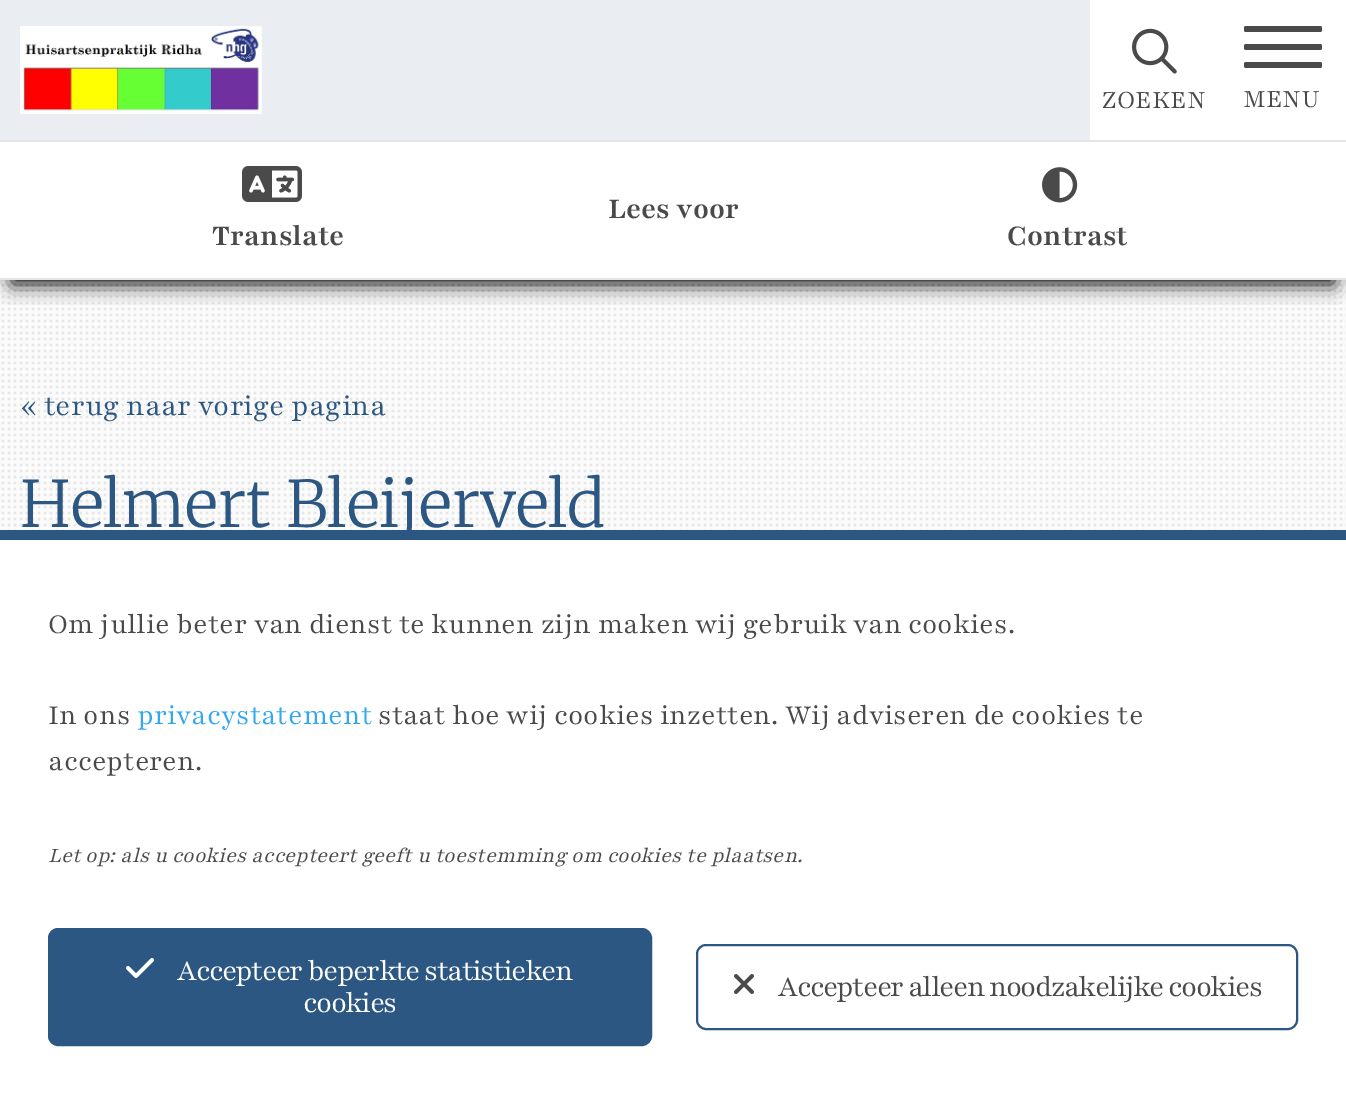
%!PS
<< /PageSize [1346 1106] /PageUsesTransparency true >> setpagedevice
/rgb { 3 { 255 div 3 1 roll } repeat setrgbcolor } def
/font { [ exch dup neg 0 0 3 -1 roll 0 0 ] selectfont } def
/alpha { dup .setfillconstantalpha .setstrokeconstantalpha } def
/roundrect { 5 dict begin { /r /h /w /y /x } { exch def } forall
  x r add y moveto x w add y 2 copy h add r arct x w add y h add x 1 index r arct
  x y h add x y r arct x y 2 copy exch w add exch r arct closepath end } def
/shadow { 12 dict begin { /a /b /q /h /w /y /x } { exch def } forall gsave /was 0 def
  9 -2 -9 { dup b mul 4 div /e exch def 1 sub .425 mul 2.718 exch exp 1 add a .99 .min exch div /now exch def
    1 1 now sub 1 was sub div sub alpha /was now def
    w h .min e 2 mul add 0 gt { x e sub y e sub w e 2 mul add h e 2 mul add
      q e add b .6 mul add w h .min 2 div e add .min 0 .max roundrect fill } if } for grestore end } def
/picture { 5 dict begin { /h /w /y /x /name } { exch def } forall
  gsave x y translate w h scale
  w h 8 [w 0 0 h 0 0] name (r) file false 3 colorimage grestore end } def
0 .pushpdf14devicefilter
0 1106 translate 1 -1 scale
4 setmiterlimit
255 255 255 rgb
0 0 1346 1106 rectfill
(img/5.rgb) 0 280 1346 250 picture
0.15 alpha
230 230 230 rgb
0 280 1346 2 rectfill
gsave
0 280 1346 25 rectclip
1 alpha
0 0 0 rgb
12 168 1322 116 0 10 1 shadow
grestore
1 alpha
234 238 243 rgb
0 0 1090 140 rectfill
(img/1.rgb) 20 26 242 88 picture
(img/2.rgb) 1132 28 45 46 picture
74 74 74 rgb
1244 26 78 6 2 roundrect fill
1244 44 78 6 2 roundrect fill
1244 62 78 6 2 roundrect fill
229 229 229 rgb
0 140 1346 2 rectfill
0 278 1346 2 rectfill
(img/3.rgb) 242 166 60 36 picture
(img/4.rgb) 1042 167 36 36 picture
44 87 130 rgb
0 530 1346 10 rectfill
49 929 602 116 9 roundrect gsave fill grestore
2 setlinewidth
stroke
(img/6.rgb) 126 958 28 20 picture
697 945 600 84 9 roundrect stroke
(img/7.rgb) 734 974 20 20 picture
/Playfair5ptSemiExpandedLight-Light 28 font
74 74 74 rgb
1102 108 moveto (ZOEKEN) show
1243 107 moveto (MENU) show
/Playfair5ptSemiExpandedLight-Bold 32 font
[
  [(Lees voor) 608 218]
  [(Translate) 212 245]
  [(Contrast) 1007 245]
] { aload pop moveto show } forall
/Playfair5ptSemiExpandedLight-Light 32 font
44 87 130 rgb
20 415 moveto (« terug naar vorige pagina) show
/Merriweather-Light 64 font
20 527 moveto (Helmert Bleijerveld) show
255 255 255 rgb
398 540 11 3 rectfill
/Playfair5ptSemiExpandedLight-Light 30.6 font
74 74 74 rgb
48 633 moveto (Om jullie beter van dienst te kunnen zijn maken wij gebruik van cookies.) show
48 724 moveto (In ons) show
49 168 240 rgb
137 724 moveto (privacystatement) show
74 74 74 rgb
378 724 moveto (staat hoe wij cookies inzetten. Wij adviseren de cookies te) show
48 770 moveto (accepteren.) show
/Playfair5ptSemiExpandedLight-LightItalic 22.95 font
48 862 moveto (Let op: als u cookies accepteert geeft u toestemming om cookies te plaatsen.) show
/Playfair5ptSemiExpandedLight-Light 32 font
255 255 255 rgb
177 980 moveto -1.6 0 (Accepteer beperkte statistieken) ashow
303 1012 moveto -1.6 0 (cookies) ashow
74 74 74 rgb
778 996 moveto -1.6 0 (Accepteer alleen noodzakelijke cookies) ashow
.poppdf14devicefilter showpage
